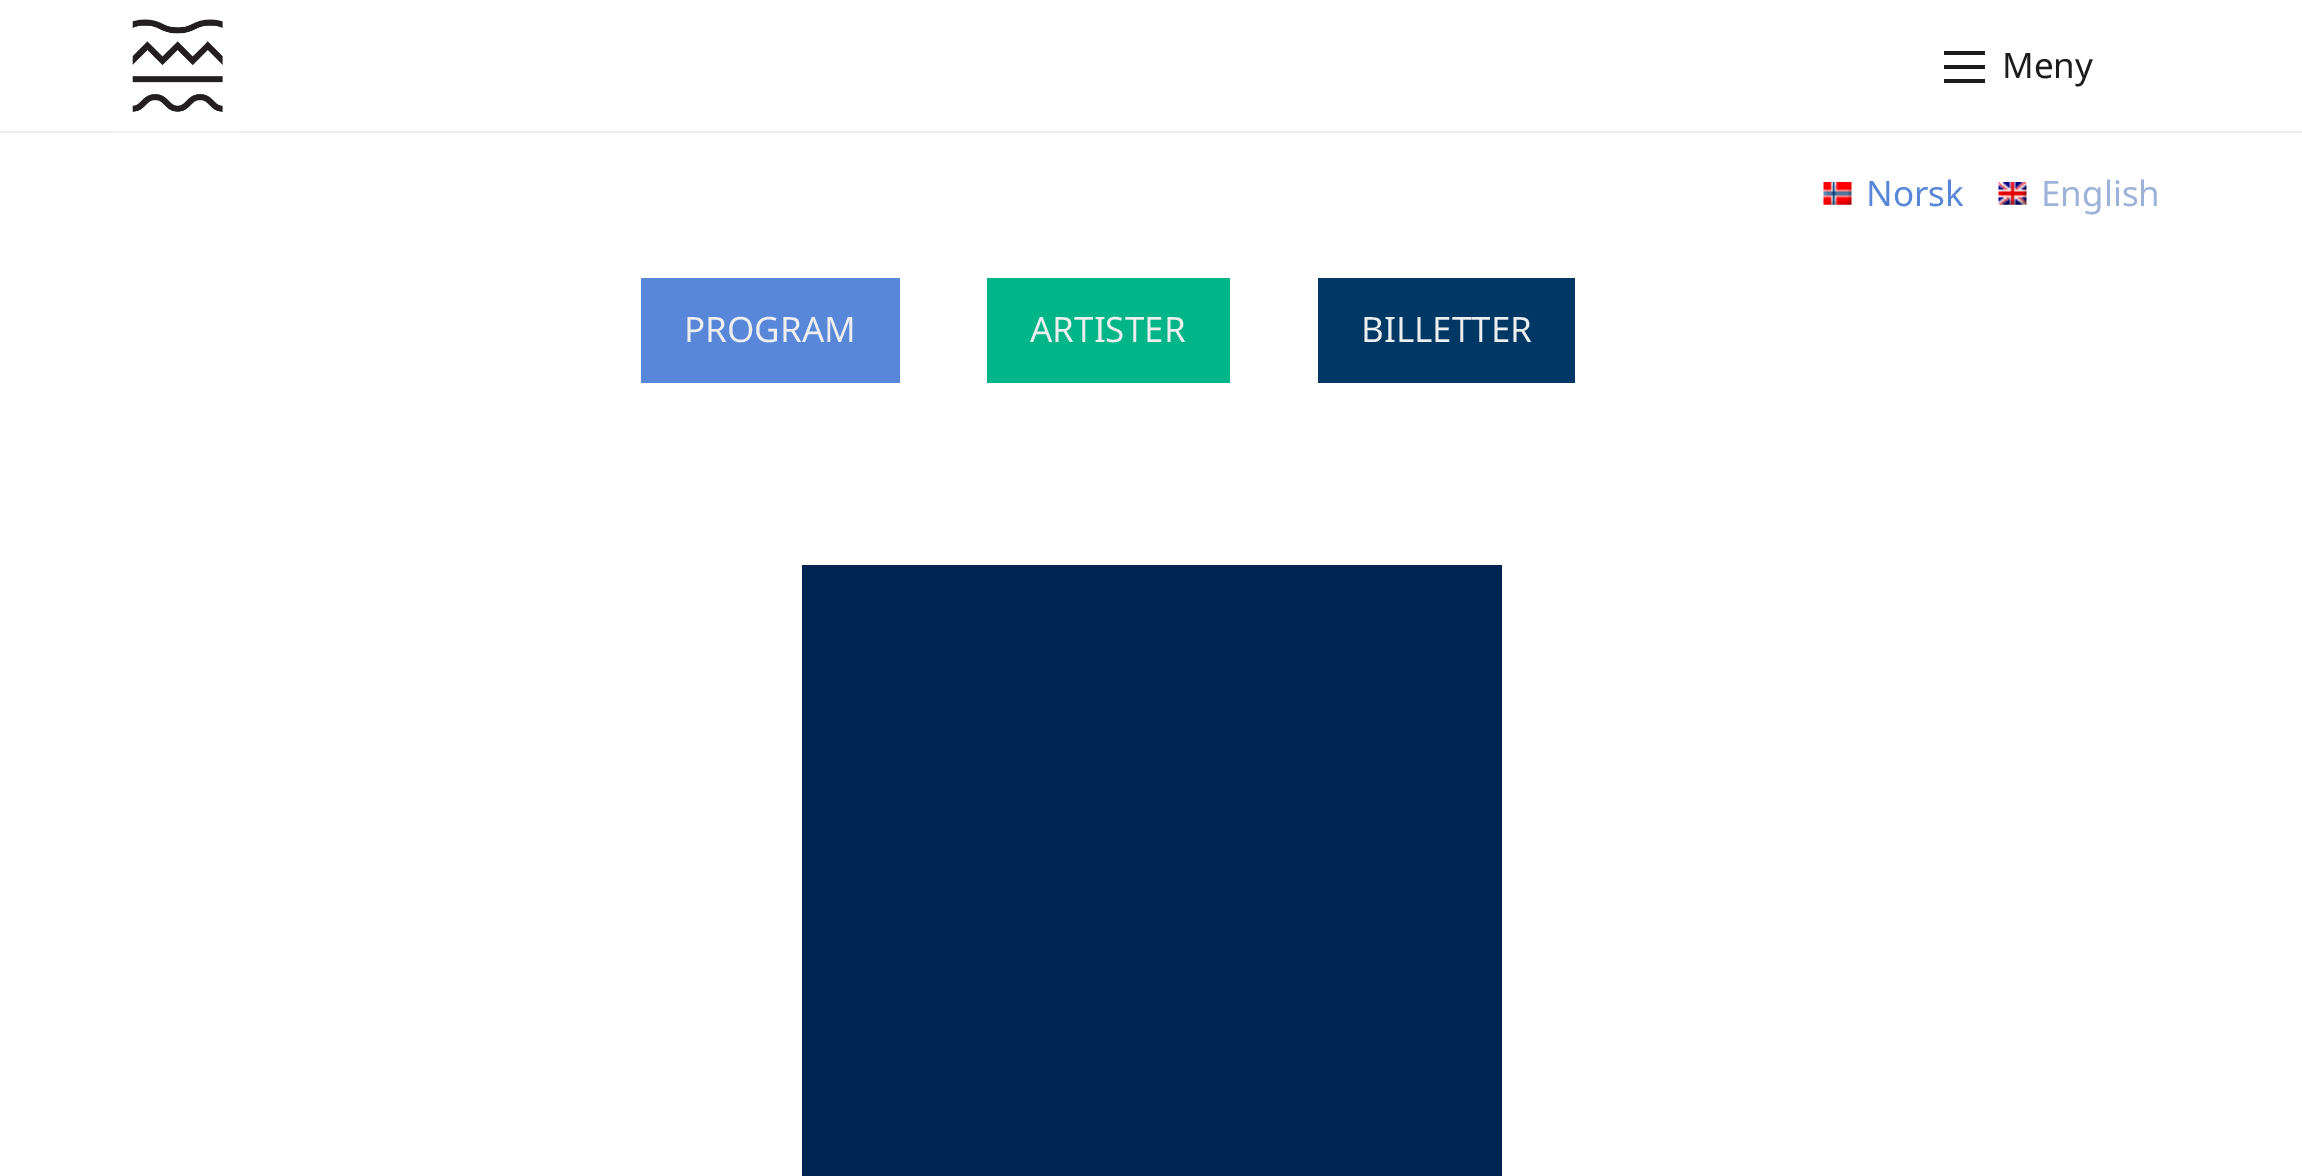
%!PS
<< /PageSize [2302 1176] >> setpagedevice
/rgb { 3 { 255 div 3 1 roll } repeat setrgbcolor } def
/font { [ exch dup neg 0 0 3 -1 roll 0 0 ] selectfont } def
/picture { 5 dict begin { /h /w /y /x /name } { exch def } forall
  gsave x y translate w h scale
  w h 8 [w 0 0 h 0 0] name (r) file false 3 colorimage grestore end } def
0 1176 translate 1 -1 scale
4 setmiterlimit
255 255 255 rgb
0 0 2302 1176 rectfill
238 238 238 rgb
0 131 2302 2 rectfill
(img/1.rgb) 112 19 131 113 picture
[
  [1944 51 41 4 28 28 28]
  [1944 65 41 4 28 28 28]
  [1944 79 41 4 28 28 28]
] { aload pop rgb rectfill } forall
(img/2.rgb) 1823 182 29 23 picture
(img/3.rgb) 1998 182 29 23 picture
[
  [641 278 259 105 88 135 218]
  [987 278 243 105 0 181 136]
  [1318 278 257 105 0 56 101]
  [802 565 700 611 0 36 81]
] { aload pop rgb rectfill } forall
/NotoSans-Regular 35 font
28 28 28 rgb
2002 78 moveto (Meny) show
88 135 218 rgb
1866 206 moveto (Norsk) show
156 178 216 rgb
2041 206 moveto (English) show
238 238 238 rgb
[
  [(PROGRAM) 684 342]
  [(ARTISTER) 1030 342]
  [(BILLETTER) 1361 342]
] { aload pop moveto show } forall
showpage
